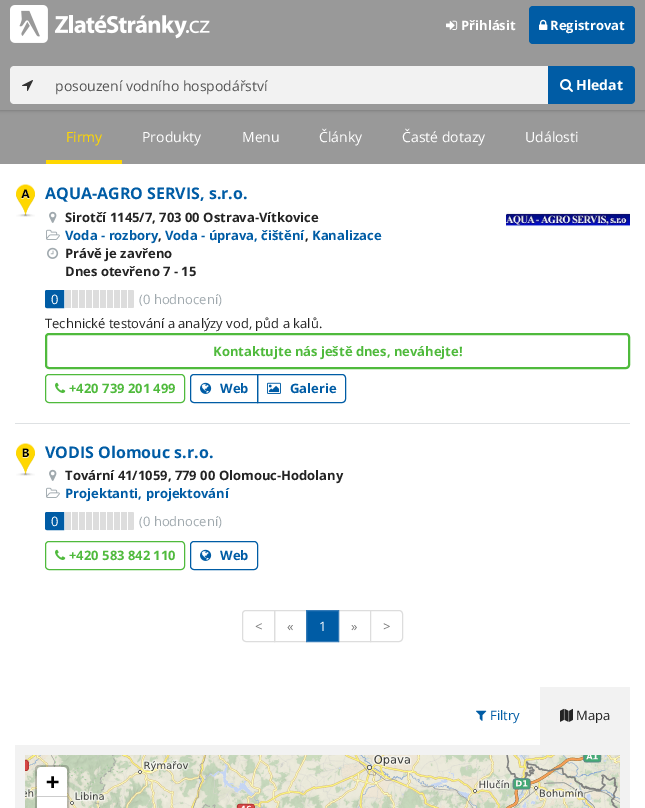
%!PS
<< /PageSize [645 808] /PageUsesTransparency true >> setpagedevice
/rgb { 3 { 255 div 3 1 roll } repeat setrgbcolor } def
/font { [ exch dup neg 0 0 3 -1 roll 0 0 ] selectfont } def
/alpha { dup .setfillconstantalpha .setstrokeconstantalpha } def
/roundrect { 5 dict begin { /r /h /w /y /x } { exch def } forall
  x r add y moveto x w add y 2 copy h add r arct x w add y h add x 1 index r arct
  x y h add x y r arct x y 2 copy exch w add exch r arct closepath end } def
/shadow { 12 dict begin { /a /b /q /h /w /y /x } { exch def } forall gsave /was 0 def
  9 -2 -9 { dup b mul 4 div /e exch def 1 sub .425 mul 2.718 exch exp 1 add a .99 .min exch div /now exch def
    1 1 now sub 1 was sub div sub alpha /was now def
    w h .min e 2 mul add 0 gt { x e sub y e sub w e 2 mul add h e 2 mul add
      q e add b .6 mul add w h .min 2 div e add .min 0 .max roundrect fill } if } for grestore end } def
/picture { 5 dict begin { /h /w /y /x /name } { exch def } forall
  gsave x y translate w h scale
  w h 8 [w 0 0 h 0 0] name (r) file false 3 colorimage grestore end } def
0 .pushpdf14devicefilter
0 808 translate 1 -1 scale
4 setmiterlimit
255 255 255 rgb
0 0 645 808 rectfill
153 153 153 rgb
0 110 645 54 rectfill
0 0 0 rgb
0 0 645 110 0 2 0.3 shadow
153 153 153 rgb
0 0 645 110 rectfill
(img/1.rgb) 10 5 200 38 picture
(img/2.rgb) 446 20 12 10 picture
0 92 165 rgb
529 6 106 38 4 roundrect fill
(img/3.rgb) 539 19 9 11 picture
242 242 242 rgb
14 66 moveto 45 66 lineto 45 104 lineto 14 104 lineto 12 104 10 102 10 100 curveto 10 70 lineto 10 68 12 66 14 66 curveto closepath fill
(img/4.rgb) 22 80 11 11 picture
45 66 503 38 rectfill
0 92 165 rgb
548 66 moveto 631 66 lineto 633 66 635 68 635 70 curveto 635 100 lineto 635 102 633 104 631 104 curveto 548 104 lineto closepath fill
(img/5.rgb) 560 79 13 13 picture
255 215 0 rgb
46 160 76 4 rectfill
222 225 227 rgb
15 423 615 1 rectfill
(img/6.rgb) 16 184 19 33 picture
(img/7.rgb) 49 211 8 12 picture
(img/8.rgb) 46 229 14 11 picture
(img/9.rgb) 47 247 12 12 picture
0 92 165 rgb
47 290.5 moveto 63.5 290.5 lineto 63.5 307.5 lineto 47 307.5 lineto 46 307.5 45.5 307 45.5 306 curveto 45.5 292 lineto 45.5 291 46 290.5 47 290.5 curveto closepath gsave fill grestore
stroke
(img/10.rgb) 65 290 69 18 picture
(img/11.rgb) 506 211 124 19 picture
79 186 60 rgb
2 setlinewidth
46 334 583 34 3 roundrect stroke
1 setlinewidth
45.5 374.5 139 28 3.5 roundrect stroke
(img/12.rgb) 55 382 11 11 picture
0 92 165 rgb
194 374.5 moveto 257.5 374.5 lineto 257.5 402.5 lineto 194 402.5 lineto 192 402.5 190.5 401 190.5 399 curveto 190.5 378 lineto 190.5 376 192 374.5 194 374.5 curveto closepath stroke
(img/13.rgb) 200 382 12 12 picture
257.5 374.5 moveto 342 374.5 lineto 344 374.5 345.5 376 345.5 378 curveto 345.5 399 lineto 345.5 401 344 402.5 342 402.5 curveto 257.5 402.5 lineto closepath stroke
(img/14.rgb) 267 382 14 12 picture
(img/15.rgb) 16 443 19 33 picture
(img/7.rgb) 49 469 8 12 picture
(img/8.rgb) 46 487 14 11 picture
47 512.5 moveto 63.5 512.5 lineto 63.5 529.5 lineto 47 529.5 lineto 46 529.5 45.5 529 45.5 528 curveto 45.5 514 lineto 45.5 513 46 512.5 47 512.5 curveto closepath gsave fill grestore
stroke
(img/10.rgb) 65 512 69 18 picture
79 186 60 rgb
45.5 541.5 139 28 3.5 roundrect stroke
(img/12.rgb) 55 549 11 11 picture
0 92 165 rgb
190.5 541.5 67 28 3.5 roundrect stroke
(img/13.rgb) 200 549 12 12 picture
221 221 221 rgb
246 610.5 moveto 274.5 610.5 lineto 274.5 641.5 lineto 246 641.5 lineto 244 641.5 242.5 640 242.5 638 curveto 242.5 614 lineto 242.5 612 244 610.5 246 610.5 curveto closepath stroke
274.5 610.5 32 31 rectstroke
338.5 610.5 32 31 rectstroke
0 92 165 rgb
306.5 610.5 moveto 338.5 610.5 lineto 338.5 641.5 lineto 306.5 641.5 lineto closepath gsave fill grestore
51 122 183 rgb
stroke
255 255 255 rgb
370.5 610.5 moveto 399 610.5 lineto 401 610.5 402.5 612 402.5 614 curveto 402.5 638 lineto 402.5 640 401 641.5 399 641.5 curveto 370.5 641.5 lineto closepath gsave fill grestore
221 221 221 rgb
stroke
(img/16.rgb) 476 710 11 11 picture
242 242 242 rgb
540 687 90 58 rectfill
(img/17.rgb) 560 708 13 14 picture
15 745 615 63 rectfill
(img/18.rgb) 25 755 227 53 picture
(img/19.rgb) 252 755 256 53 picture
(img/20.rgb) 508 755 112 53 picture
0.2 alpha
0 0 0 rgb
2 setlinewidth
36 766 32 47 3 roundrect stroke
1 alpha
255 255 255 rgb
41 767 moveto 63 767 lineto 65 767 67 769 67 771 curveto 67 797 lineto 37 797 lineto 37 771 lineto 37 769 39 767 41 767 curveto closepath fill
204 204 204 rgb
37 796 30 1 rectfill
255 255 255 rgb
37 797 30 11 rectfill
/OpenSans-Bold 13 font
461 30 moveto (Přihlásit) show
550 30 moveto (Registrovat) show
/OpenSans-Regular 14 font
85 85 85 rgb
55 91 moveto (posouzení vodního hospodářství) show
/OpenSans-Bold 14 font
255 255 255 rgb
576 90 moveto (Hledat) show
/OpenSans-Regular 14 font
255 215 0 rgb
66 142 moveto (Firmy) show
255 255 255 rgb
[
  [(Produkty) 142 142]
  [(Menu) 242 142]
  [(Články) 319 142]
  [(Časté dotazy) 402 142]
  [(Události) 525 142]
] { aload pop moveto show } forall
/OpenSans-Bold 16 font
0 92 165 rgb
45 199 moveto (AQUA-AGRO SERVIS, s.r.o.) show
/OpenSans-Bold 13 font
35 35 35 rgb
65 222 moveto (Sirotčí 1145/7, 703 00 Ostrava-Vítkovice) show
0 92 165 rgb
65 240 moveto (Voda - rozbory) show
35 35 35 rgb
158 240 moveto (,) show
0 92 165 rgb
165 240 moveto (Voda - úprava, čištění) show
35 35 35 rgb
305 240 moveto (,) show
0 92 165 rgb
312 240 moveto (Kanalizace) show
35 35 35 rgb
65 258 moveto (Právě je zavřeno) show
65 276 moveto (Dnes otevřeno 7 - 15) show
/OpenSans-Regular 13 font
255 255 255 rgb
51 304 moveto (0) show
160 169 174 rgb
139 304 moveto (\(0 hodnocení\)) show
35 35 35 rgb
45 328 moveto (Technické testování a analýzy vod, půd a kalů.) show
/OpenSans-Bold 13 font
79 186 60 rgb
213 356 moveto (Kontaktujte nás ještě dnes, neváhejte!) show
69 393 moveto (+420 739 201 499) show
0 92 165 rgb
220 393 moveto (Web) show
290 393 moveto (Galerie) show
/OpenSans-Bold 16 font
45 458 moveto (VODIS Olomouc s.r.o.) show
/OpenSans-Bold 13 font
35 35 35 rgb
65 480 moveto (Tovární 41/1059, 779 00 Olomouc-Hodolany) show
0 92 165 rgb
65 498 moveto (Projektanti, projektování) show
/OpenSans-Regular 13 font
255 255 255 rgb
51 526 moveto (0) show
160 169 174 rgb
139 526 moveto (\(0 hodnocení\)) show
/OpenSans-Bold 13 font
79 186 60 rgb
69 560 moveto (+420 583 842 110) show
0 92 165 rgb
220 560 moveto (Web) show
/OpenSans-Regular 13 font
119 119 119 rgb
255 631 moveto (<) show
287 631 moveto («) show
255 255 255 rgb
319 631 moveto (1) show
119 119 119 rgb
351 631 moveto (») show
383 631 moveto (>) show
0 92 165 rgb
490 720 moveto (Filtry) show
35 35 35 rgb
576 720 moveto (Mapa) show
/DejaVuSansMono-Bold 22 font
0 0 0 rgb
46 789 moveto (+) show
.poppdf14devicefilter showpage
